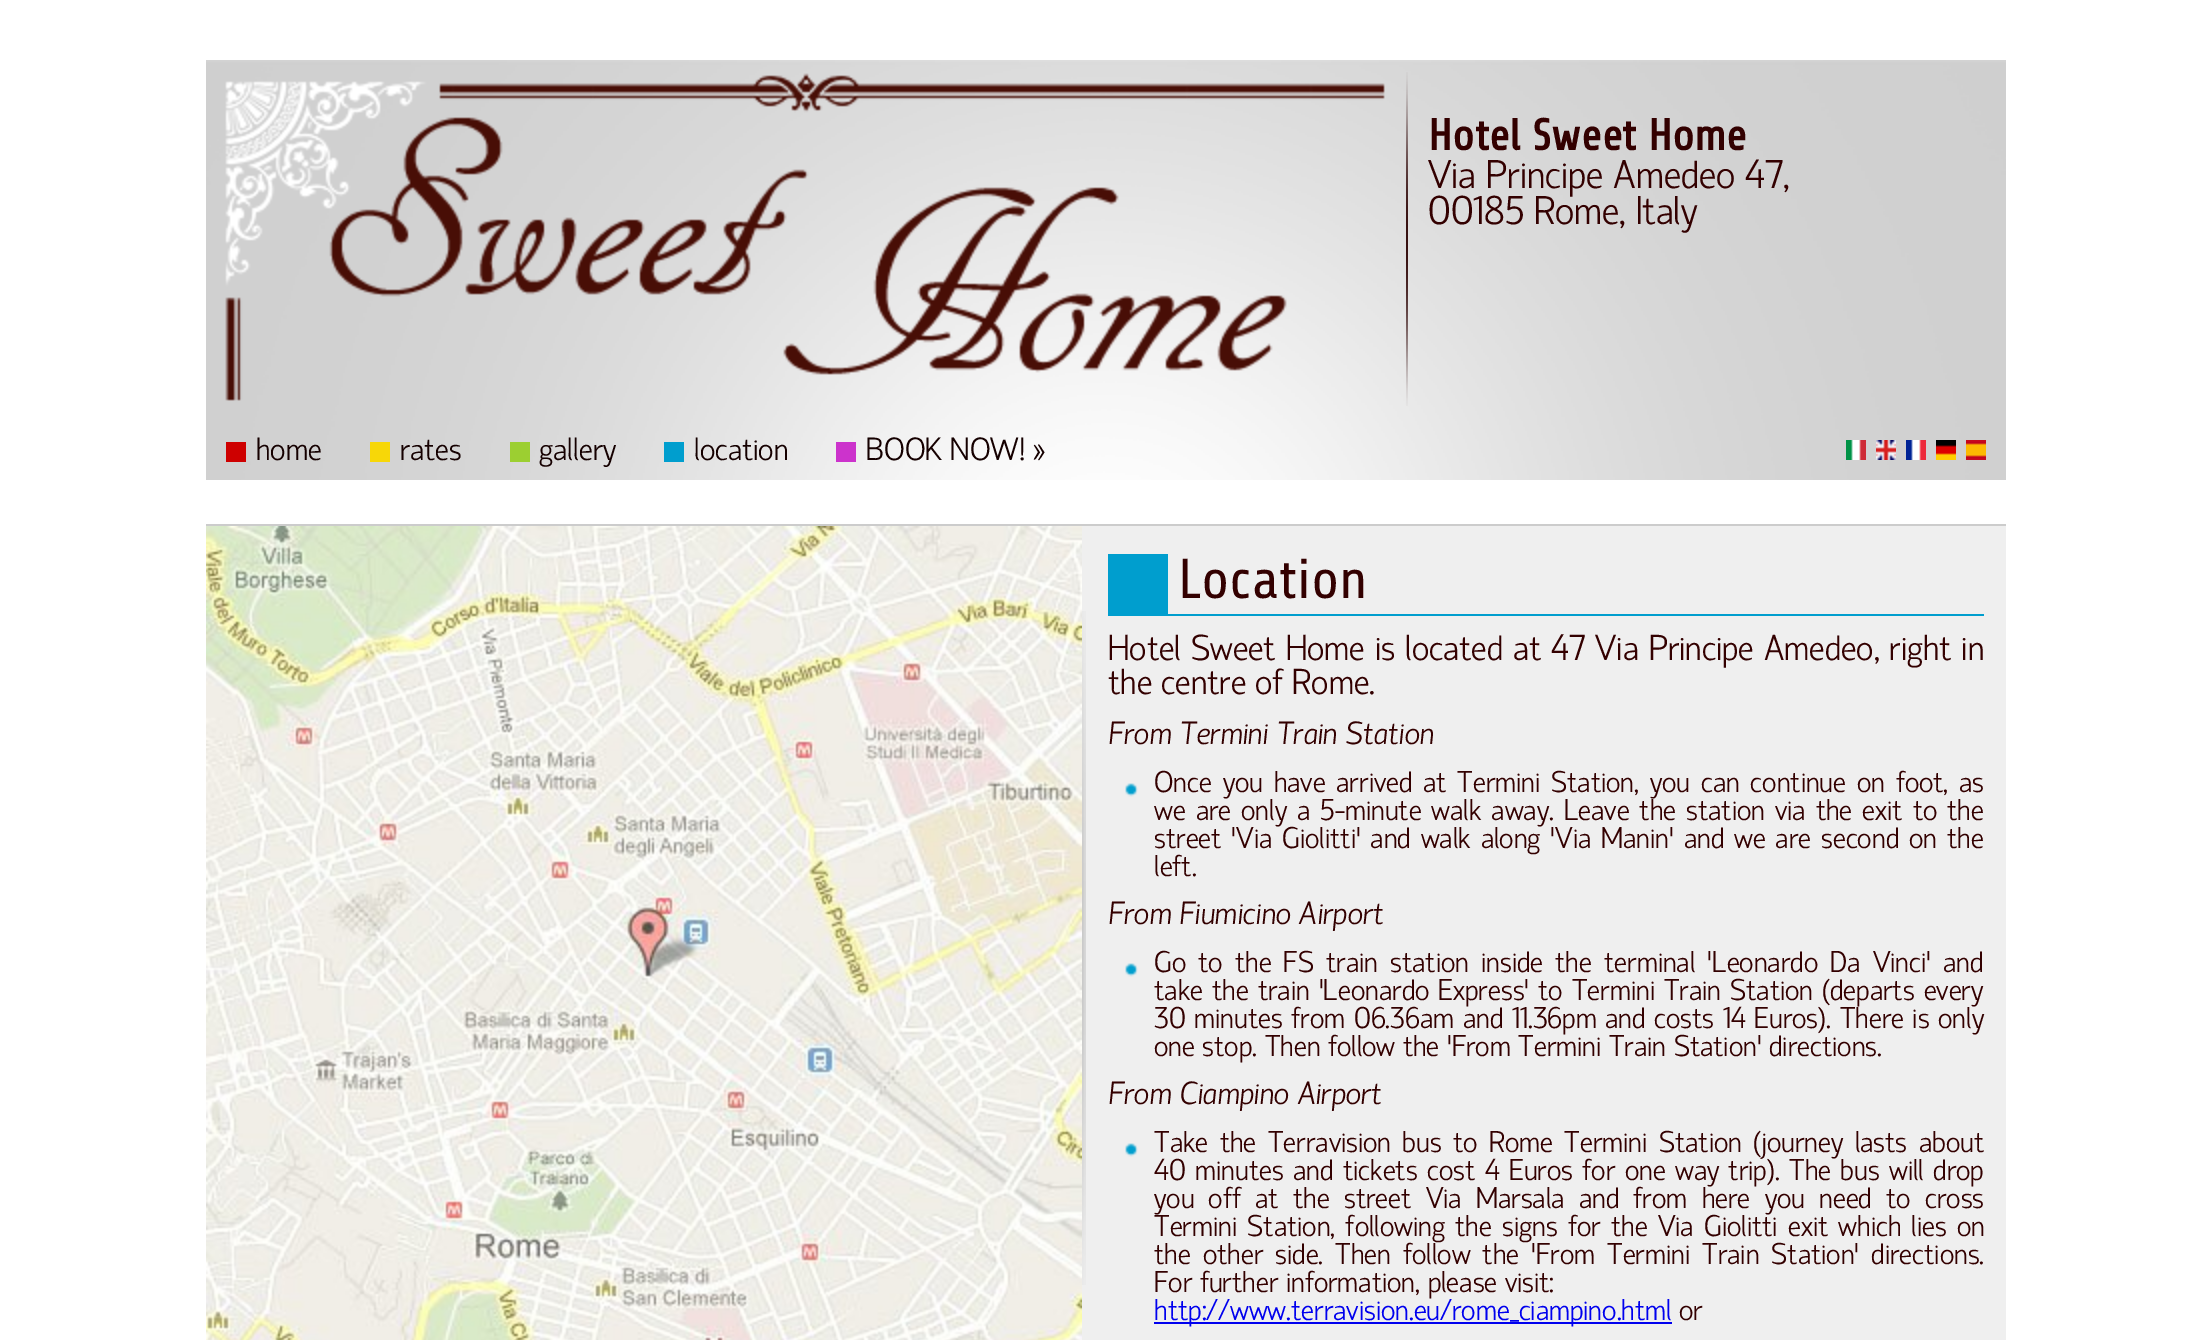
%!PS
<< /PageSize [2212 1340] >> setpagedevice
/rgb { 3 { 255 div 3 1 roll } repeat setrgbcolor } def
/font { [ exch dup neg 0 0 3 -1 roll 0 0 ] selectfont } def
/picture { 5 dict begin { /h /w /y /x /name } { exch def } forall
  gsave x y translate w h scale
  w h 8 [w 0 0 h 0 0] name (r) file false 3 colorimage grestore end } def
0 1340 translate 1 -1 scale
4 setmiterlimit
255 255 255 rgb
0 0 2212 1340 rectfill
(img/1.rgb) 206 60 1800 420 picture
(img/2.rgb) 225 73 1160 328 picture
(img/3.rgb) 1406 72 2 334 picture
[
  [226 442 20 20 206 0 0]
  [370 442 20 20 247 215 8]
  [510 442 20 20 156 207 49]
  [664 442 20 20 0 158 206]
  [836 442 20 20 204 51 204]
] { aload pop rgb rectfill } forall
(img/4.rgb) 1846 440 20 20 picture
(img/5.rgb) 1876 440 20 20 picture
(img/6.rgb) 1906 440 20 20 picture
(img/7.rgb) 1936 440 20 20 picture
(img/8.rgb) 1966 440 20 20 picture
239 239 239 rgb
1082 526 924 814 rectfill
204 204 204 rgb
206 524 1800 2 rectfill
(img/9.rgb) 206 526 876 814 picture
(img/10.rgb) 1082 611 4 674 picture
0 158 206 rgb
1108 554 60 60 rectfill
1108 614 876 2 rectfill
(img/11.rgb) 1125 783 13 14 picture
(img/11.rgb) 1125 963 13 14 picture
(img/11.rgb) 1125 1143 13 14 picture
0 0 238 rgb
1154 1322 518 2 rectfill
/Share-Bold 44 font
51 0 0 rgb
1428 150 moveto (Hotel Sweet Home) show
/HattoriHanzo-Light 40 font
1428 188 moveto (Via Principe Amedeo 47,) show
1428 224 moveto (00185 Rome, Italy) show
/HattoriHanzo-Light 32 font
21 0 0 rgb
[
  [(home) 256 460]
  [(rates) 400 460]
  [(gallery) 539 460]
  [(location) 694 460]
  [(BOOK NOW! ») 866 460]
] { aload pop moveto show } forall
/Share-Regular 56 font
51 0 0 rgb
1178 598 moveto (Location) show
/HattoriHanzo-Light 36 font
1108 660 moveto 1 0 32 (Hotel Sweet Home is located at 47 Via Principe Amedeo, right in) widthshow
1108 694 moveto (the centre of Rome.) show
/HattoriHanzo-LightItalic 32 font
1108 744 moveto (From Termini Train Station) show
/HattoriHanzo-Light 30 font
1154 792 moveto 3.25 0 32 (Once you have arrived at Termini Station, you can continue on foot, as) widthshow
1154 820 moveto 2.5 0 32 (we are only a 5-minute walk away. Leave the station via the exit to the) widthshow
1154 848 moveto 2.4 0 32 (street 'Via Giolitti' and walk along 'Via Manin' and we are second on the) widthshow
1154 876 moveto (left.) show
/HattoriHanzo-LightItalic 32 font
1108 924 moveto (From Fiumicino Airport) show
/HattoriHanzo-Light 30 font
1154 972 moveto 4.6 0 32 (Go to the FS train station inside the terminal 'Leonardo Da Vinci' and) widthshow
1154 1000 moveto 1.5 0 32 (take the train 'Leonardo Express' to Termini Train Station \(departs every) widthshow
1154 1028 moveto 1.1 0 32 (30 minutes from 06.36am and 11.36pm and costs 14 Euros\). There is only) widthshow
1154 1056 moveto (one stop. Then follow the 'From Termini Train Station' directions.) show
/HattoriHanzo-LightItalic 32 font
1108 1104 moveto (From Ciampino Airport) show
/HattoriHanzo-Light 30 font
1154 1152 moveto 3.9 0 32 (Take the Terravision bus to Rome Termini Station \(journey lasts about) widthshow
1154 1180 moveto 1.9 0 32 (40 minutes and tickets cost 4 Euros for one way trip\). The bus will drop) widthshow
1154 1208 moveto 6.75 0 32 (you off at the street Via Marsala and from here you need to cross) widthshow
1154 1236 moveto 2.75 0 32 (Termini Station, following the signs for the Via Giolitti exit which lies on) widthshow
1154 1264 moveto 4.5 0 32 (the other side. Then follow the 'From Termini Train Station' directions.) widthshow
1154 1292 moveto (For further information, please visit:) show
0 0 238 rgb
1154 1320 moveto (http://www.terravision.eu/rome_ciampino.html) show
51 0 0 rgb
1679 1320 moveto (or) show
showpage
